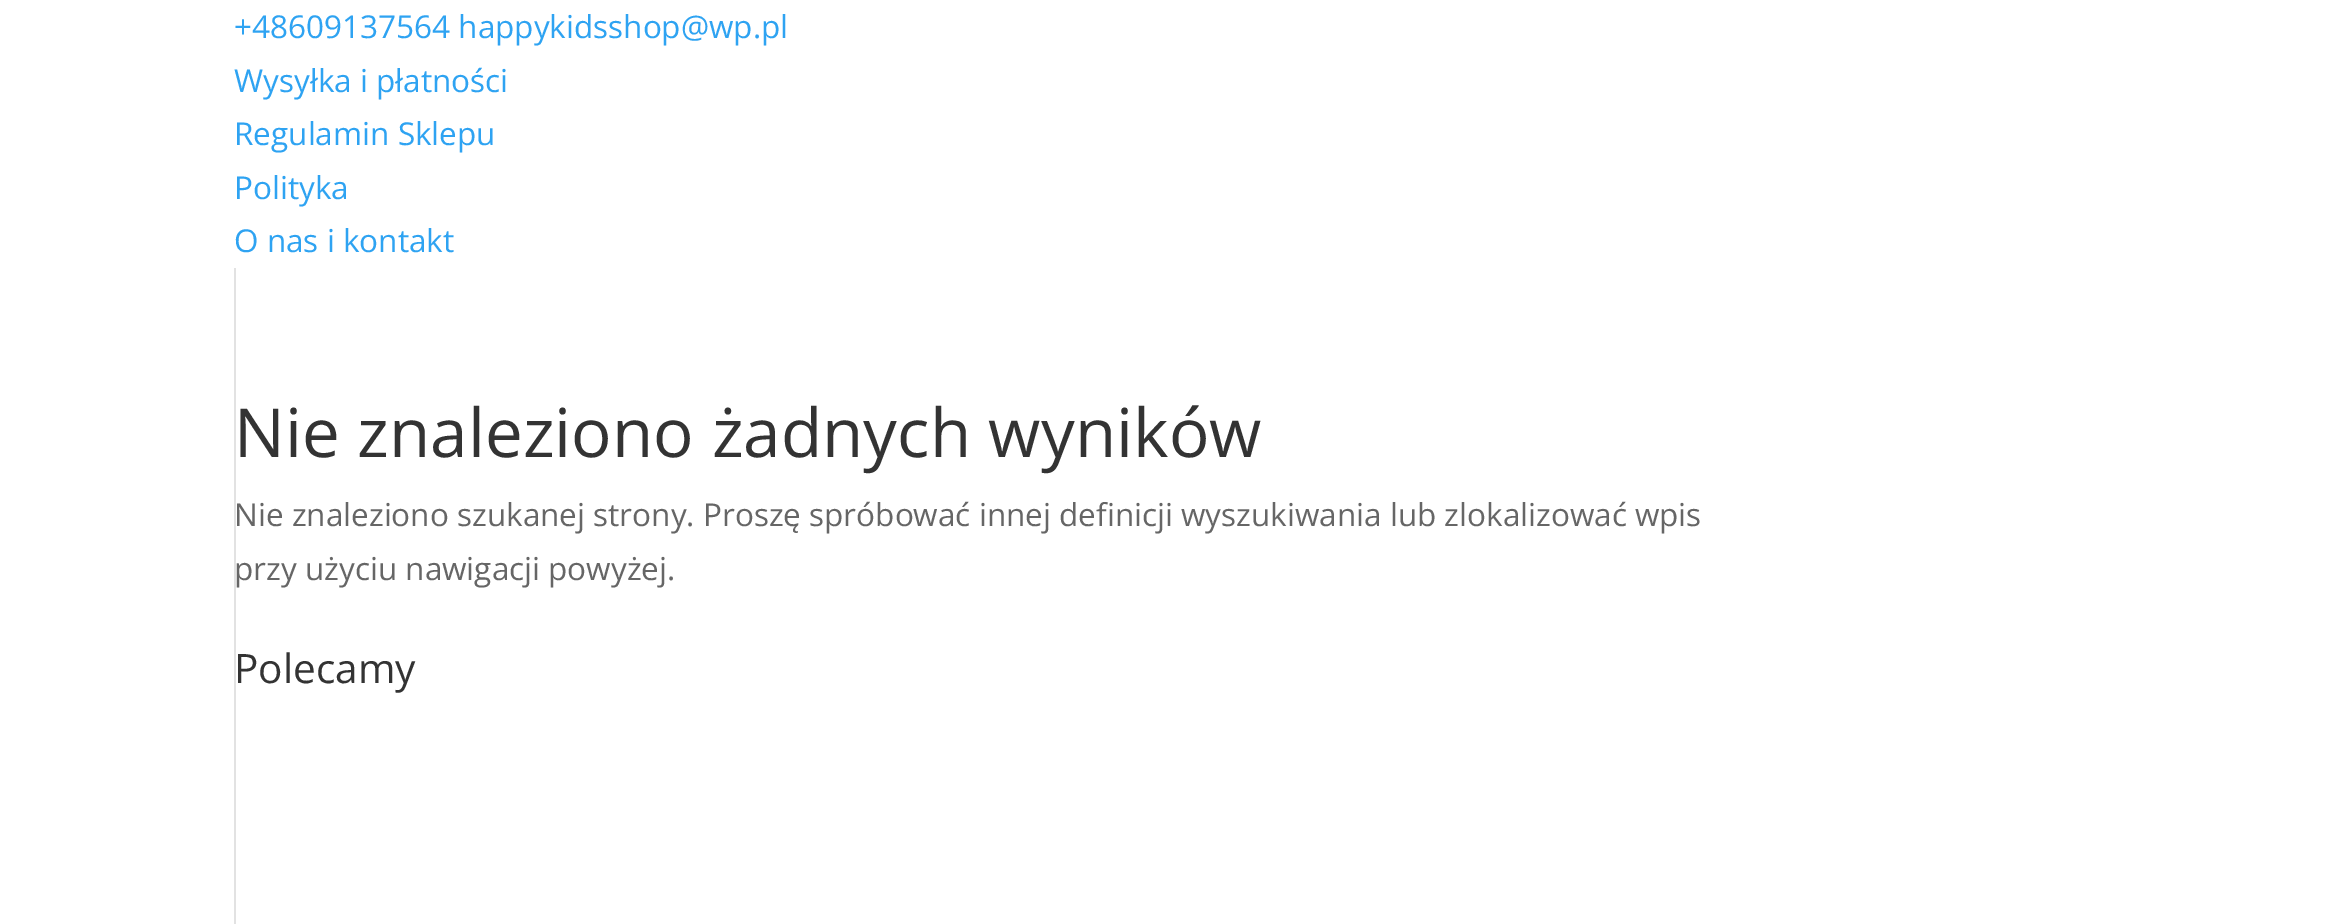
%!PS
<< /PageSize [2334 924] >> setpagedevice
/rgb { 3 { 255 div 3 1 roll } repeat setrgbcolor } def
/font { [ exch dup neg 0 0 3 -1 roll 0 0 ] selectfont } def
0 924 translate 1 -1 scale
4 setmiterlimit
255 255 255 rgb
0 0 2334 924 rectfill
226 226 226 rgb
234 268 2 656 rectfill
/OpenSans-Regular 31.5 font
46 163 242 rgb
[
  [(+48609137564 happykidsshop@wp.pl) 234 38]
  [(Wysyłka i płatności) 234 92]
  [(Regulamin Sklepu) 234 145]
  [(Polityka) 234 199]
  [(O nas i kontakt) 234 252]
] { aload pop moveto show } forall
/OpenSans-Regular 67.5 font
51 51 51 rgb
234 457 moveto (Nie znaleziono żadnych wyników) show
/OpenSans-Regular 31.5 font
102 102 102 rgb
234 526 moveto (Nie znaleziono szukanej strony. Proszę spróbować innej definicji wyszukiwania lub zlokalizować wpis) show
234 580 moveto (przy użyciu nawigacji powyżej.) show
/OpenSans-Regular 40.5 font
51 51 51 rgb
234 683 moveto (Polecamy) show
showpage
